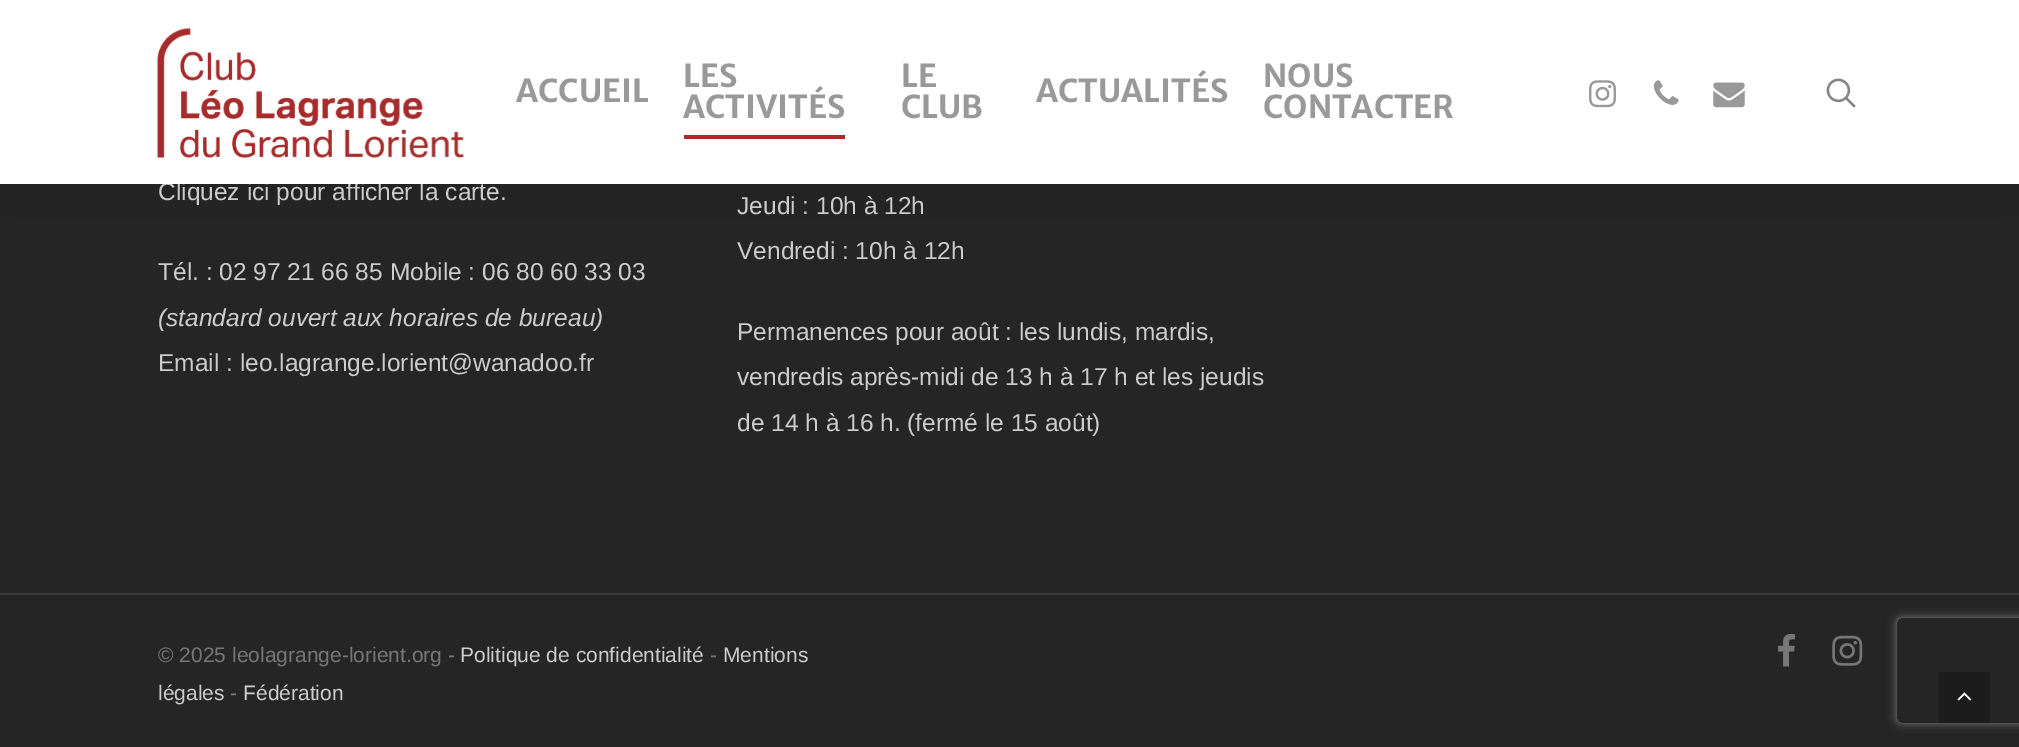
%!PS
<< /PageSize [2019 747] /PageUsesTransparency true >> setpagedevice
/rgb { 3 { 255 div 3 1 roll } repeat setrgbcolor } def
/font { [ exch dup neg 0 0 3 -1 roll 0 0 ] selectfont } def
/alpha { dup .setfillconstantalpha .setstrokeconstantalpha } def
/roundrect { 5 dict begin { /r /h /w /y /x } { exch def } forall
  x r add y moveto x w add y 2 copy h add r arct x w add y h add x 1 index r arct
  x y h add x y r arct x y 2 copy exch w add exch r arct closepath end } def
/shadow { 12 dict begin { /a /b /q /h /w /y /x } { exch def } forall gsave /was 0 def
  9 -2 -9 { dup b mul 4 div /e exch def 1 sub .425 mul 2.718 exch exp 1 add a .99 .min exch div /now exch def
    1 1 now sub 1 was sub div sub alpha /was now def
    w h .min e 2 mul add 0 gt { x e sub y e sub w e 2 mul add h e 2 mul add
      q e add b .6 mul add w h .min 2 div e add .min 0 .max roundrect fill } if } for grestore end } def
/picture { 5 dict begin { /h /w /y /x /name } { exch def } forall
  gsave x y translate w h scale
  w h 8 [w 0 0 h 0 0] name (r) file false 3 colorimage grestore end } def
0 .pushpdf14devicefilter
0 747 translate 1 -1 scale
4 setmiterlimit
37 37 37 rgb
0 0 2019 747 rectfill
0 0 0 rgb
0 5 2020 184 0 39.5 0.15 shadow
59 59 59 rgb
0 593 2019 2 rectfill
(img/6.rgb) 1778 633 17 34 picture
(img/7.rgb) 1832 635 31 31 picture
gsave
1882 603 moveto 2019 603 lineto 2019 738 lineto 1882 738 lineto closepath 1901 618 moveto 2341 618 lineto 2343 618 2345 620 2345 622 curveto 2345 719 lineto 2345 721 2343 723 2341 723 curveto 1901 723 lineto 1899 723 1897 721 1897 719 curveto 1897 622 lineto 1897 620 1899 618 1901 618 curveto closepath eoclip newpath
128 128 128 rgb
1897 618 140 105 4 4.5 1 shadow
grestore
0.25 alpha
0 0 0 rgb
1939 672 51 51 rectfill
1 alpha
(img/8.rgb) 1957 692 15 9 picture
/LiberationSans-Regular 24.5 font
204 204 204 rgb
158 200 moveto (Cliquez ici pour afficher la carte.) show
255 255 255 rgb
0 0 2019 184 rectfill
(img/5.rgb) 1826 78 30 30 picture
(img/4.rgb) 1713 82 32 26 picture
(img/3.rgb) 1653 80 26 25 picture
(img/2.rgb) 1589 80 27 28 picture
/MerriweatherSans-Bold 31.5 font
153 153 153 rgb
[
  [(CONTACTER) 1263 118]
  [(NOUS) 1263 87]
  [(ACTUALITÉS) 1036 102]
  [(CLUB) 901 118]
  [(LE) 901 87]
] { aload pop moveto show } forall
166 43 43 rgb
684 135 161 4 rectfill
153 153 153 rgb
[
  [(ACTIVITÉS) 683 118]
  [(LES) 683 87]
  [(ACCUEIL) 516 102]
] { aload pop moveto show } forall
(img/1.rgb) 157 27 307 131 picture
/LiberationSans-Regular 24.5 font
204 204 204 rgb
158 280 moveto (Tél. : 02 97 21 66 85 Mobile : 06 80 60 33 03) show
/LiberationSans-Italic 24.5 font
158 326 moveto (\(standard ouvert aux horaires de bureau\)) show
/LiberationSans-Regular 24.5 font
[
  [(Email : leo.lagrange.lorient@wanadoo.fr) 158 371]
  [(Jeudi : 10h à 12h) 737 214]
  [(Vendredi : 10h à 12h) 737 259]
  [(Permanences pour août : les lundis, mardis,) 737 340]
  [(vendredis après-midi de 13 h à 17 h et les jeudis) 737 385]
  [(de 14 h à 16 h. \(fermé le 15 août\)) 737 431]
] { aload pop moveto show } forall
/LiberationSans-Regular 21 font
119 119 119 rgb
158 662 moveto (© 2025 leolagrange-lorient.org -) show
204 204 204 rgb
460 662 moveto (Politique de confidentialité) show
119 119 119 rgb
710 662 moveto (-) show
204 204 204 rgb
723 662 moveto (Mentions) show
158 700 moveto (légales) show
119 119 119 rgb
230 700 moveto (-) show
204 204 204 rgb
243 700 moveto (Fédération) show
.poppdf14devicefilter showpage
